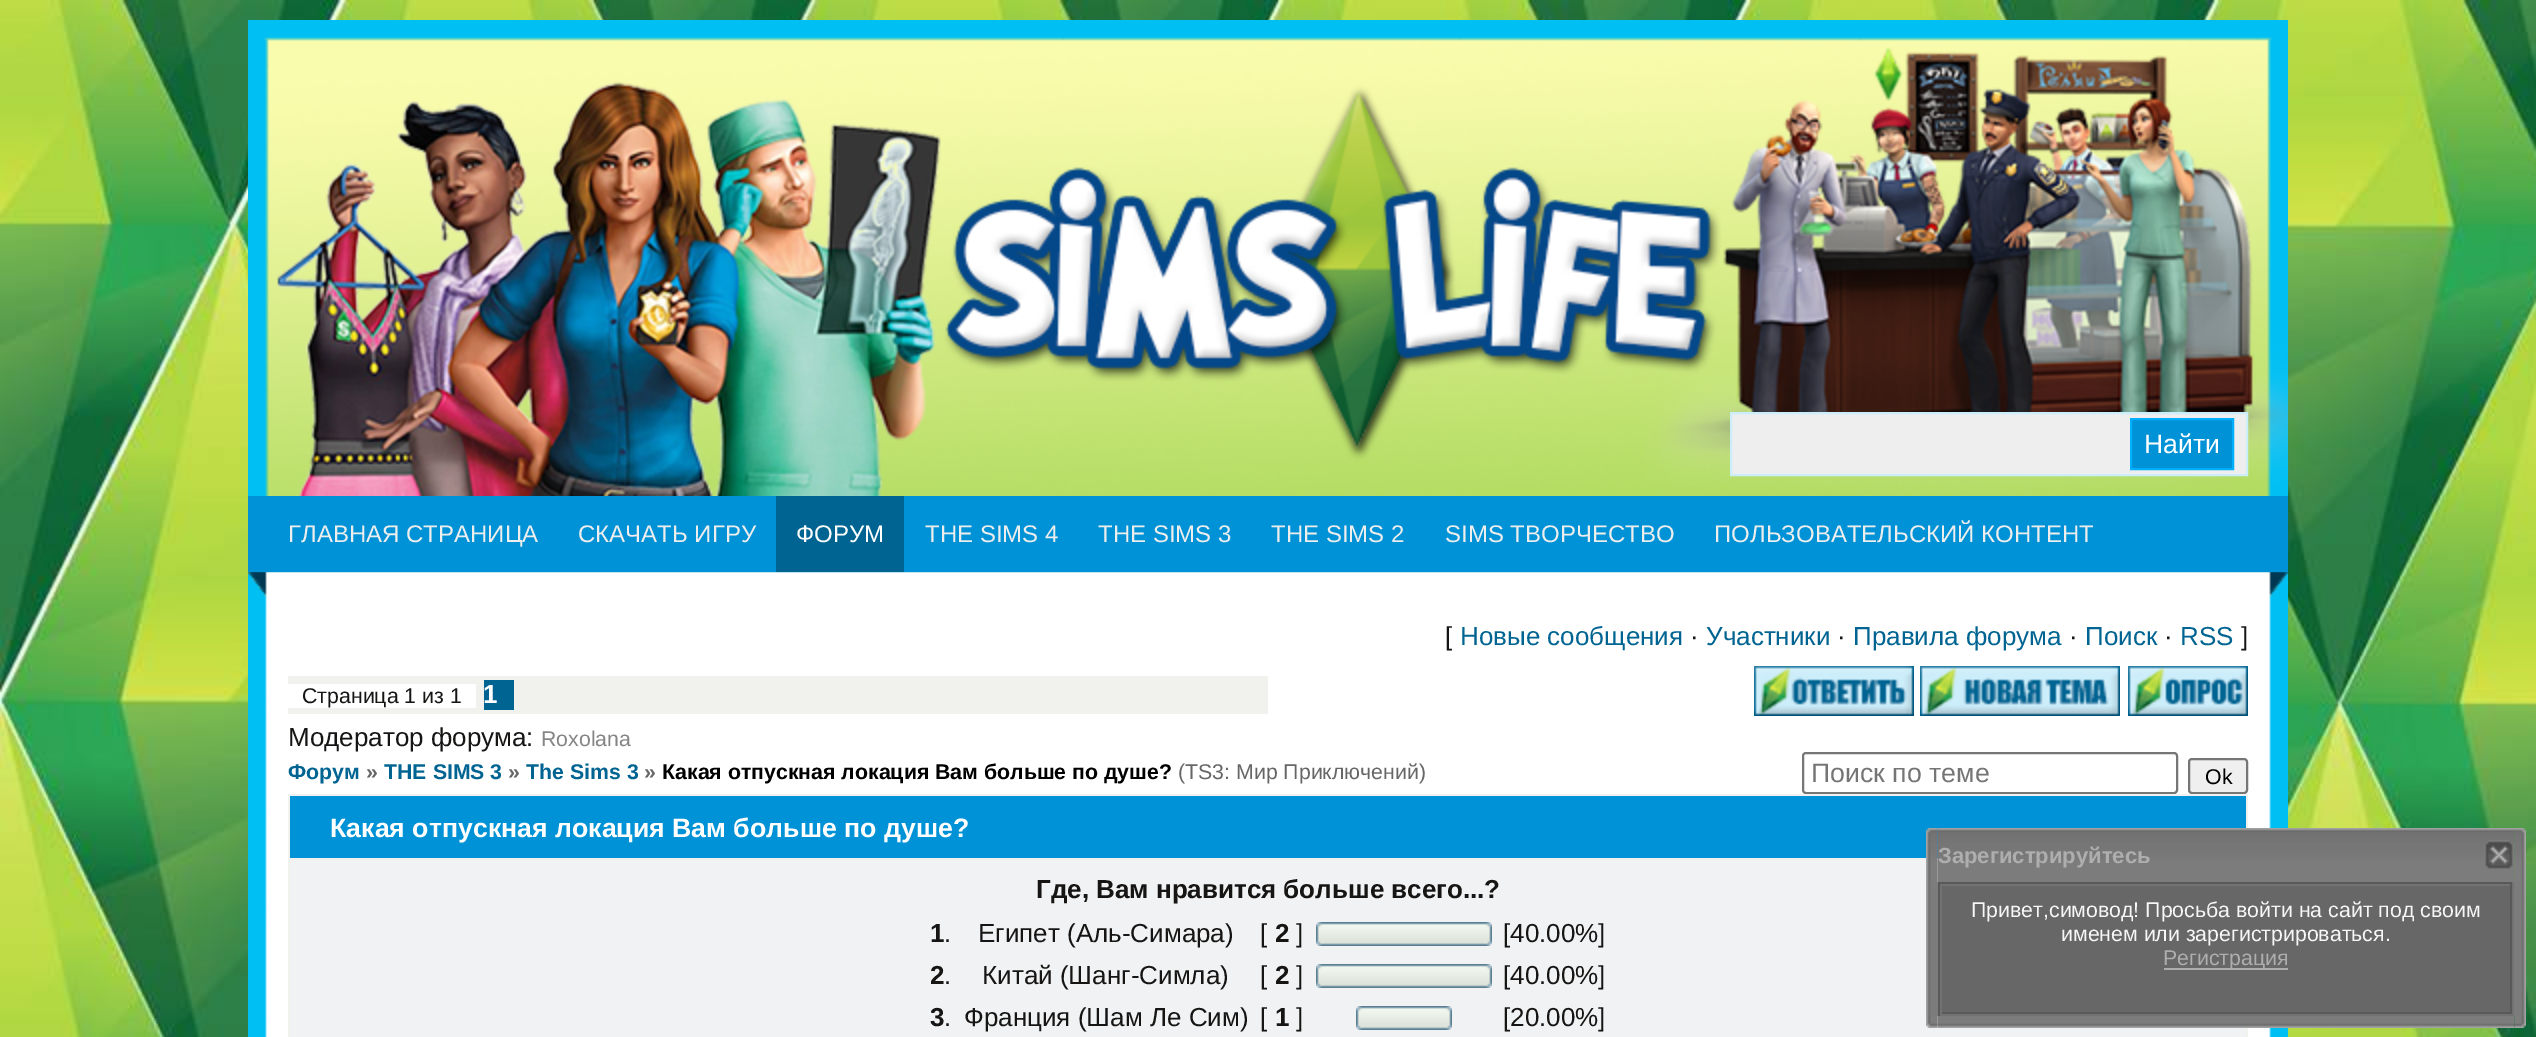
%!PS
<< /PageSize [2536 1037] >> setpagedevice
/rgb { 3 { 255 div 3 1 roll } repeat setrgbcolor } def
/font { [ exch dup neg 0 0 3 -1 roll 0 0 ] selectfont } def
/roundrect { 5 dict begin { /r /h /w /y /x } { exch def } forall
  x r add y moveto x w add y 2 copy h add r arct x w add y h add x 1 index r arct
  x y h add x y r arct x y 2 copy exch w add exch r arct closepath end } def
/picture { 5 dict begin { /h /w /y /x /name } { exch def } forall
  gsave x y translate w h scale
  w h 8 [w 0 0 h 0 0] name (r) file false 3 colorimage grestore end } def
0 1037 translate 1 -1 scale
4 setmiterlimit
255 255 255 rgb
0 0 2536 1037 rectfill
(img/1.rgb) 0 0 2536 1037 picture
(img/2.rgb) 248 20 2040 476 picture
238 238 238 rgb
1731 413 moveto 2247 413 lineto 2247 475 lineto 1731 475 lineto closepath gsave fill grestore
204 237 250 rgb
2 setlinewidth
stroke
0 146 214 rgb
2131 419 moveto 2233 419 lineto 2233 469 lineto 2131 469 lineto closepath gsave fill grestore
0 174 254 rgb
stroke
(img/3.rgb) 248 572 2040 24 picture
0 146 214 rgb
248 496 2040 76 rectfill
0 100 146 rgb
776 496 128 76 rectfill
(img/4.rgb) 248 596 2040 441 picture
[
  [288 676 980 38 241 241 237]
  [288 684 188 24 255 255 255]
  [484 680 30 30 0 100 146]
] { aload pop rgb rectfill } forall
(img/5.rgb) 1754 666 160 50 picture
(img/6.rgb) 1920 666 200 50 picture
(img/7.rgb) 2128 666 120 50 picture
118 118 118 rgb
1803 753 374 40 3 roundrect stroke
239 239 239 rgb
2189 759 58 34 3 roundrect gsave fill grestore
118 118 118 rgb
stroke
[
  [288 794 1960 243 241 241 237]
  [290 796 1956 62 0 146 214]
  [290 860 1956 177 241 242 243]
] { aload pop rgb rectfill } forall
(img/8.rgb) 1316 922 8 24 picture
(img/9.rgb) 1324 922 160 24 picture
(img/10.rgb) 1484 922 8 24 picture
(img/8.rgb) 1316 964 8 24 picture
(img/9.rgb) 1324 964 160 24 picture
(img/10.rgb) 1484 964 8 24 picture
(img/8.rgb) 1356 1006 8 24 picture
(img/11.rgb) 1364 1006 80 24 picture
(img/10.rgb) 1444 1006 8 24 picture
(img/12.rgb) 1926 828 12 54 picture
(img/13.rgb) 2514 828 12 54 picture
(img/14.rgb) 1938 828 576 54 picture
(img/15.rgb) 2484 840 30 29 picture
(img/16.rgb) 1926 882 12 134 picture
(img/17.rgb) 2514 882 12 134 picture
[
  [1942 886 568 126 103 103 103]
  [1938 882 576 2 89 89 89]
  [2512 882 2 134 114 114 114]
  [1938 1014 576 2 114 114 114]
  [1938 882 2 134 89 89 89]
  [1940 884 572 2 114 114 114]
  [2510 884 2 130 89 89 89]
  [1940 1012 572 2 89 89 89]
  [1940 884 2 130 114 114 114]
  [2164 968 124 2 174 174 174]
] { aload pop rgb rectfill } forall
(img/18.rgb) 1926 1016 12 12 picture
(img/19.rgb) 2514 1016 12 12 picture
(img/20.rgb) 1938 1016 576 12 picture
/LiberationSans-Regular 26.7 font
255 255 255 rgb
2144 453 moveto (Найти) show
/LiberationSans-Regular 24 font
238 238 238 rgb
288 542 moveto (ГЛАВНАЯ СТРАНИЦА) show
578 542 moveto (СКАЧАТЬ ИГРУ) show
255 255 255 rgb
796 542 moveto (ФОРУМ) show
238 238 238 rgb
[
  [(THE SIMS 4) 925 542]
  [(THE SIMS 3) 1098 542]
  [(THE SIMS 2) 1271 542]
  [(SIMS ТВОРЧЕСТВО) 1445 542]
  [(ПОЛЬЗОВАТЕЛЬСКИЙ КОНТЕНТ) 1714 542]
] { aload pop moveto show } forall
/LiberationSans-Regular 26 font
22 21 20 rgb
1445 645 moveto ([) show
0 100 146 rgb
1460 645 moveto (Новые сообщения) show
22 21 20 rgb
1690 645 moveto (·) show
0 100 146 rgb
1706 645 moveto (Участники) show
22 21 20 rgb
1837 645 moveto (·) show
0 100 146 rgb
1853 645 moveto (Правила форума) show
22 21 20 rgb
2069 645 moveto (·) show
0 100 146 rgb
2085 645 moveto (Поиск) show
22 21 20 rgb
2164 645 moveto (·) show
0 100 146 rgb
2180 645 moveto (RSS) show
22 21 20 rgb
2241 645 moveto (]) show
/LiberationSans-Regular 21.3 font
302 703 moveto (Страница 1 из 1) show
/LiberationSans-Bold 26 font
255 255 255 rgb
483 703 moveto (1) show
/LiberationSans-Regular 26 font
22 21 20 rgb
288 746 moveto (Модератор форума:) show
/LiberationSans-Regular 21.3 font
133 133 133 rgb
541 746 moveto (Roxolana) show
/LiberationSans-Bold 21.3 font
0 100 146 rgb
288 779 moveto (Форум) show
102 102 102 rgb
366 779 moveto (») show
0 100 146 rgb
384 779 moveto (THE SIMS 3) show
102 102 102 rgb
508 779 moveto (») show
0 100 146 rgb
526 779 moveto (The Sims 3) show
102 102 102 rgb
644 779 moveto (») show
0 0 0 rgb
662 779 moveto (Какая отпускная локация Вам больше по душе?) show
/LiberationSans-Regular 21.3 font
102 102 102 rgb
1178 779 moveto (\(TS3: Мир Приключений\)) show
/LiberationSans-Regular 26.7 font
117 117 117 rgb
1811 782 moveto (Поиск по теме) show
/LiberationSans-Regular 21.3 font
0 0 0 rgb
2205 784 moveto (Ok) show
/LiberationSans-Bold 26.7 font
255 255 255 rgb
330 837 moveto (Какая отпускная локация Вам больше по душе?) show
/LiberationSans-Bold 26 font
22 21 20 rgb
1036 898 moveto (Где, Вам нравится больше всего...?) show
930 942 moveto (1) show
/LiberationSans-Regular 26 font
[
  [(.) 944 942]
  [(Египет \(Аль-Симара\)) 978 942]
  [([) 1260 942]
] { aload pop moveto show } forall
/LiberationSans-Bold 26 font
1275 942 moveto (2) show
/LiberationSans-Regular 26 font
1296 942 moveto (]) show
1503 942 moveto ([40.00%]) show
/LiberationSans-Bold 26 font
930 984 moveto (2) show
/LiberationSans-Regular 26 font
[
  [(.) 944 984]
  [(Китай \(Шанг-Симла\)) 982 984]
  [([) 1260 984]
] { aload pop moveto show } forall
/LiberationSans-Bold 26 font
1275 984 moveto (2) show
/LiberationSans-Regular 26 font
1296 984 moveto (]) show
1503 984 moveto ([40.00%]) show
/LiberationSans-Bold 26 font
930 1026 moveto (3) show
/LiberationSans-Regular 26 font
[
  [(.) 944 1026]
  [(Франция \(Шам Ле Сим\)) 964 1026]
  [([) 1260 1026]
] { aload pop moveto show } forall
/LiberationSans-Bold 26 font
1275 1026 moveto (1) show
/LiberationSans-Regular 26 font
1296 1026 moveto (]) show
1503 1026 moveto ([20.00%]) show
/LiberationSans-Bold 22 font
174 174 174 rgb
1938 863 moveto (Зарегистрируйтесь) show
/LiberationSans-Regular 21.3 font
247 247 247 rgb
1971 917 moveto (Привет,симовод! Просьба войти на сайт под своим) show
2061 941 moveto (именем или зарегистрироваться.) show
174 174 174 rgb
2163 965 moveto (Регистрация) show
showpage
